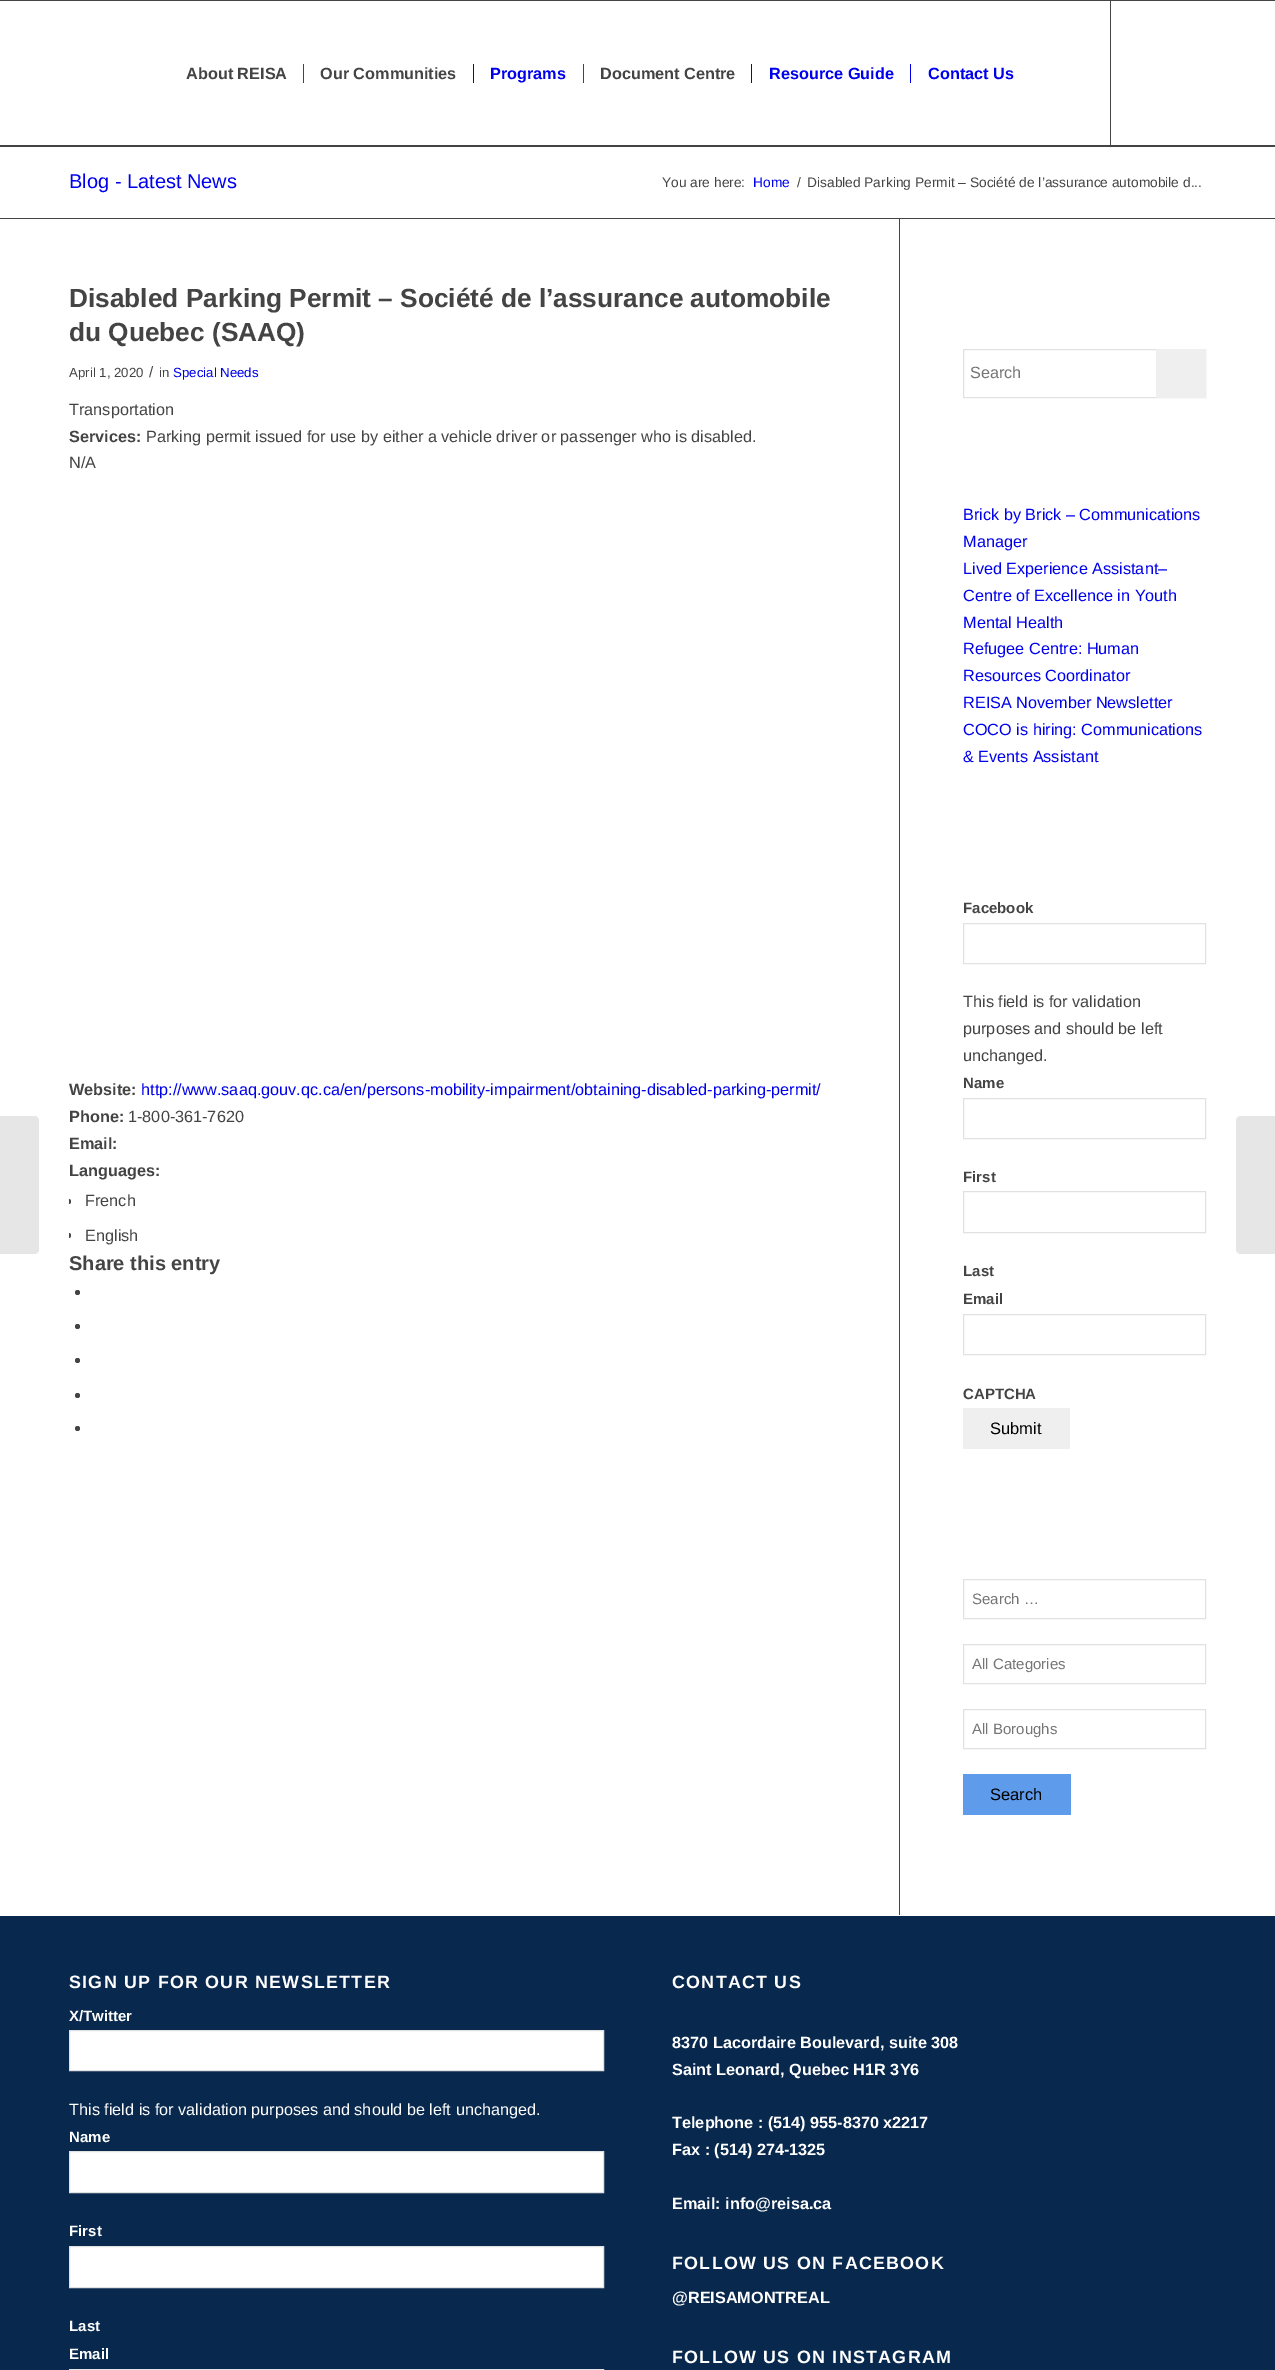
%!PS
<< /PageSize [1275 2370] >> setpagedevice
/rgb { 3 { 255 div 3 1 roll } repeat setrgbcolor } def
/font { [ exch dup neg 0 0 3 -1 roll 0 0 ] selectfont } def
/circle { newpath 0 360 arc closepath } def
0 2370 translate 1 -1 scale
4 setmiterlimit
255 255 255 rgb
0 0 1275 2370 rectfill
[
  [0 0 1275 1 68 68 68]
  [0 145 1275 2 68 68 68]
  [1110 1 1 145 68 68 68]
  [303 64 1 19 68 68 68]
  [473 64 1 19 0 0 238]
  [583 64 1 19 68 68 68]
  [751 64 1 19 0 0 238]
  [910 64 1 19 0 0 238]
  [0 218 1275 1 68 68 68]
] { aload pop rgb rectfill } forall
69 1199 moveto 68.5 1199 lineto 70 1199 71 1200 71 1201.5 curveto 71 1203 70 1204 68.5 1204 curveto 69 1204 lineto closepath fill
69 1233 moveto 68.5 1233 lineto 70 1233 71 1234 71 1235.5 curveto 71 1237 70 1238 68.5 1238 curveto 69 1238 lineto closepath fill
77.5 1292.5 2.5 circle fill
77.5 1326.5 2.5 circle fill
77.5 1360.5 2.5 circle fill
77.5 1395.5 2.5 circle fill
77.5 1428.5 2.5 circle fill
899 219 1 1696 rectfill
225 225 225 rgb
963.5 349.5 242 48 rectstroke
239 239 239 rgb
1156 349 50 49 rectfill
225 225 225 rgb
963.5 923.5 242 40 rectstroke
963.5 1098.5 242 40 rectstroke
963.5 1191.5 242 41 rectstroke
963.5 1314.5 242 40 rectstroke
239 239 239 rgb
963 1408 107 41 rectfill
225 225 225 rgb
963.5 1579.5 242 39 rectstroke
963.5 1644.5 242 39 rectstroke
963.5 1709.5 242 39 rectstroke
95 155 235 rgb
963 1774 108 41 rectfill
8 40 77 rgb
0 1916 1275 454 rectfill
255 255 255 rgb
69.5 2030.5 moveto 603.5 2030.5 lineto 603.5 2070.5 lineto 69.5 2070.5 lineto closepath gsave fill grestore
225 225 225 rgb
stroke
255 255 255 rgb
69.5 2151.5 moveto 603.5 2151.5 lineto 603.5 2192.5 lineto 69.5 2192.5 lineto closepath gsave fill grestore
225 225 225 rgb
stroke
255 255 255 rgb
69.5 2246.5 moveto 603.5 2246.5 lineto 603.5 2287.5 lineto 69.5 2287.5 lineto closepath gsave fill grestore
225 225 225 rgb
stroke
69.5 2369.5 534 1 rectstroke
230 230 230 rgb
0 1116 moveto 34 1116 lineto 37 1116 39 1118 39 1121 curveto 39 1249 lineto 39 1252 37 1254 34 1254 curveto 0 1254 lineto closepath fill
1241 1116 moveto 1275 1116 lineto 1275 1254 lineto 1241 1254 lineto 1238 1254 1236 1252 1236 1249 curveto 1236 1121 lineto 1236 1118 1238 1116 1241 1116 curveto closepath fill
/LiberationSans-Bold 16.25 font
68 68 68 rgb
186 79 moveto (About REISA) show
320 79 moveto (Our Communities) show
0 0 238 rgb
490 79 moveto (Programs) show
68 68 68 rgb
600 79 moveto (Document Centre) show
0 0 238 rgb
769 79 moveto (Resource Guide) show
928 79 moveto (Contact Us) show
/LiberationSans-Regular 20 font
69 188 moveto (Blog - Latest News) show
/LiberationSans-Regular 13.75 font
68 68 68 rgb
662 187 moveto (You are here:) show
0 0 238 rgb
753 187 moveto (Home) show
68 68 68 rgb
797 187 moveto (/) show
807 187 moveto (Disabled Parking Permit – Société de l’assurance automobile d...) show
/LiberationSans-Bold 26.25 font
69 307 moveto (Disabled Parking Permit – Société de l’assurance automobile) show
69 341 moveto (du Quebec \(SAAQ\)) show
/LiberationSans-Regular 13.25 font
69 377 moveto (April 1, 2020) show
/LiberationSans-Regular 15 font
149 377 moveto (/) show
/LiberationSans-Regular 13.25 font
159 377 moveto (in) show
0 0 238 rgb
173 377 moveto (Special Needs) show
/LiberationSans-Regular 16.25 font
68 68 68 rgb
69 415 moveto (Transportation) show
/LiberationSans-Bold 16.25 font
69 442 moveto (Services:) show
/LiberationSans-Regular 16.25 font
146 442 moveto (Parking permit issued for use by either a vehicle driver or passenger who is disabled.) show
69 468 moveto (N/A) show
/LiberationSans-Bold 16.25 font
69 1095 moveto (Website:) show
/LiberationSans-Regular 16.25 font
0 0 238 rgb
141 1095 moveto (http://www.saaq.gouv.qc.ca/en/persons-mobility-impairment/obtaining-disabled-parking-permit/) show
/LiberationSans-Bold 16.25 font
68 68 68 rgb
69 1122 moveto (Phone:) show
/LiberationSans-Regular 16.25 font
128 1122 moveto (1-800-361-7620) show
/LiberationSans-Bold 16.25 font
69 1149 moveto (Email:) show
69 1176 moveto (Languages:) show
/LiberationSans-Regular 16.25 font
85 1206 moveto (French) show
85 1241 moveto (English) show
/LiberationSans-Bold 20 font
69 1270 moveto (Share this entry) show
/LiberationSans-Regular 16.25 font
117 117 117 rgb
970 378 moveto (Search) show
0 0 238 rgb
[
  [(Brick by Brick – Communications) 963 520]
  [(Manager) 963 547]
  [(Lived Experience Assistant–) 963 574]
  [(Centre of Excellence in Youth) 963 601]
  [(Mental Health) 963 628]
  [(Refugee Centre: Human) 963 654]
  [(Resources Coordinator) 963 681]
  [(REISA November Newsletter) 963 708]
  [(COCO is hiring: Communications) 963 735]
  [(& Events Assistant) 963 762]
] { aload pop moveto show } forall
/LiberationSans-Bold 15 font
68 68 68 rgb
963 913 moveto (Facebook) show
/LiberationSans-Regular 16.25 font
[
  [(This field is for validation) 963 1007]
  [(purposes and should be left) 963 1034]
  [(unchanged.) 963 1061]
] { aload pop moveto show } forall
/LiberationSans-Bold 15 font
[
  [(Name) 963 1088]
  [(First) 963 1182]
  [(Last) 963 1276]
  [(Email) 963 1304]
  [(CAPTCHA) 963 1399]
] { aload pop moveto show } forall
/LiberationSans-Regular 16.5 font
0 0 0 rgb
990 1434 moveto (Submit) show
/LiberationSans-Regular 15 font
117 117 117 rgb
[
  [(Search …) 972 1604]
  [(All Categories) 972 1669]
  [(All Boroughs) 972 1734]
] { aload pop moveto show } forall
/LiberationSans-Regular 16.5 font
0 0 0 rgb
990 1800 moveto (Search) show
/LiberationSans-Bold 17.9 font
255 255 255 rgb
69 1988 moveto 1.25 0 (SIGN UP FOR OUR NEWSLETTER) ashow
/LiberationSans-Bold 15 font
69 2021 moveto (X/Twitter) show
/LiberationSans-Regular 16.25 font
69 2115 moveto (This field is for validation purposes and should be left unchanged.) show
/LiberationSans-Bold 15 font
[
  [(Name) 69 2142]
  [(First) 69 2236]
  [(Last) 69 2331]
  [(Email) 69 2359]
] { aload pop moveto show } forall
/LiberationSans-Bold 17.9 font
672 1988 moveto 1.25 0 (CONTACT US) ashow
/LiberationSans-Bold 16.25 font
[
  [(8370 Lacordaire Boulevard, suite 308) 672 2048]
  [(Saint Leonard, Quebec H1R 3Y6) 672 2075]
  [(Telephone : \(514\) 955-8370 x2217) 672 2128]
  [(Fax : \(514\) 274-1325) 672 2155]
  [(Email: info@reisa.ca) 672 2209]
] { aload pop moveto show } forall
/LiberationSans-Bold 17.9 font
672 2269 moveto 1.25 0 (FOLLOW US ON FACEBOOK) ashow
/LiberationSans-Bold 16.25 font
672 2303 moveto (@REISAMONTREAL) show
/LiberationSans-Bold 17.9 font
672 2363 moveto 1.25 0 (FOLLOW US ON INSTAGRAM) ashow
showpage
